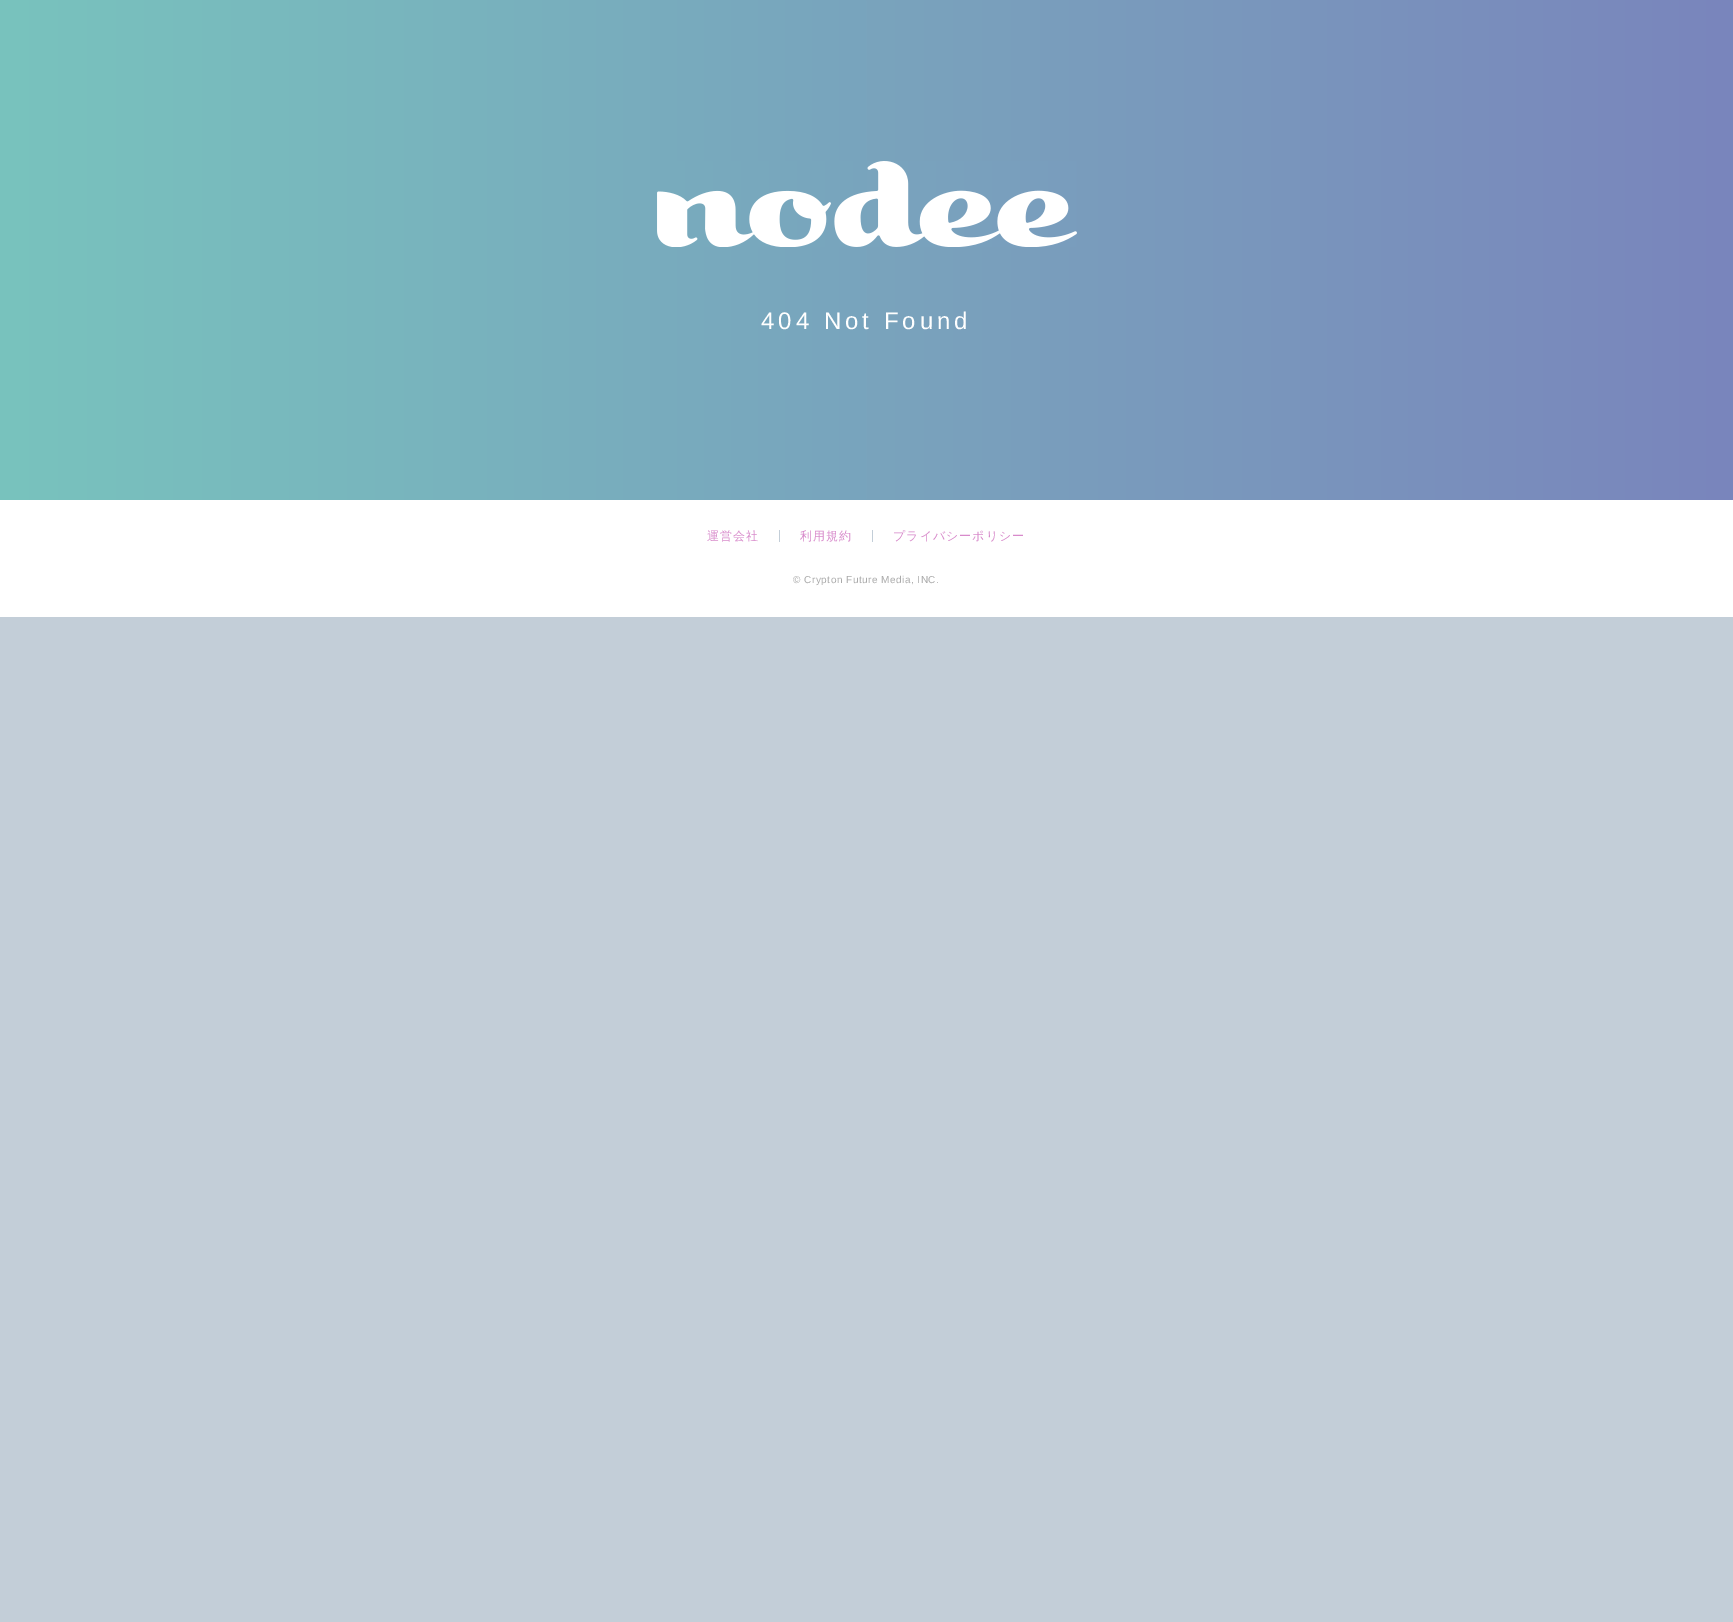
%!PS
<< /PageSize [1733 1622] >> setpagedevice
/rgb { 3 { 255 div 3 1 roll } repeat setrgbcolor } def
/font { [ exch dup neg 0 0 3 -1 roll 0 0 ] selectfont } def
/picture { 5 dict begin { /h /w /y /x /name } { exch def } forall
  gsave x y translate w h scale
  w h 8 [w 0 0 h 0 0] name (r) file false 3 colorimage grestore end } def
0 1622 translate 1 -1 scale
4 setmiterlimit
195 206 216 rgb
0 0 1733 1622 rectfill
gsave 0 0 moveto 1733 0 lineto 1733 500 lineto 0 500 lineto closepath clip newpath
<< /ShadingType 2 /ColorSpace /DeviceRGB /Coords [0 250 1733 250] /Extend [true true] /Function << /FunctionType 2 /Domain [0 1] /C0 [0.471 0.765 0.745] /C1 [0.475 0.522 0.737] /N 1 >> >> shfill grestore
(img/1.rgb) 657 161 420 86 picture
[
  [0 500 1733 117 255 255 255]
  [779 530 1 12 195 206 216]
  [872 530 1 12 195 206 216]
] { aload pop rgb rectfill } forall
/LiberationSans-Regular 24 font
255 255 255 rgb
761 329 moveto 4 0 (404 Not Found) ashow
/WenQuanYiZenHei-Medium 12 font
216 138 203 rgb
707 540 moveto 1 0 (運営会社) ashow
800 540 moveto 1 0 (利用規約) ashow
893 540 moveto 1 0 (プライバシーポリシー) ashow
/LiberationSans-Regular 10 font
170 170 170 rgb
793 583 moveto 0.5 0 (© Crypton Future Media, INC.) ashow
showpage
